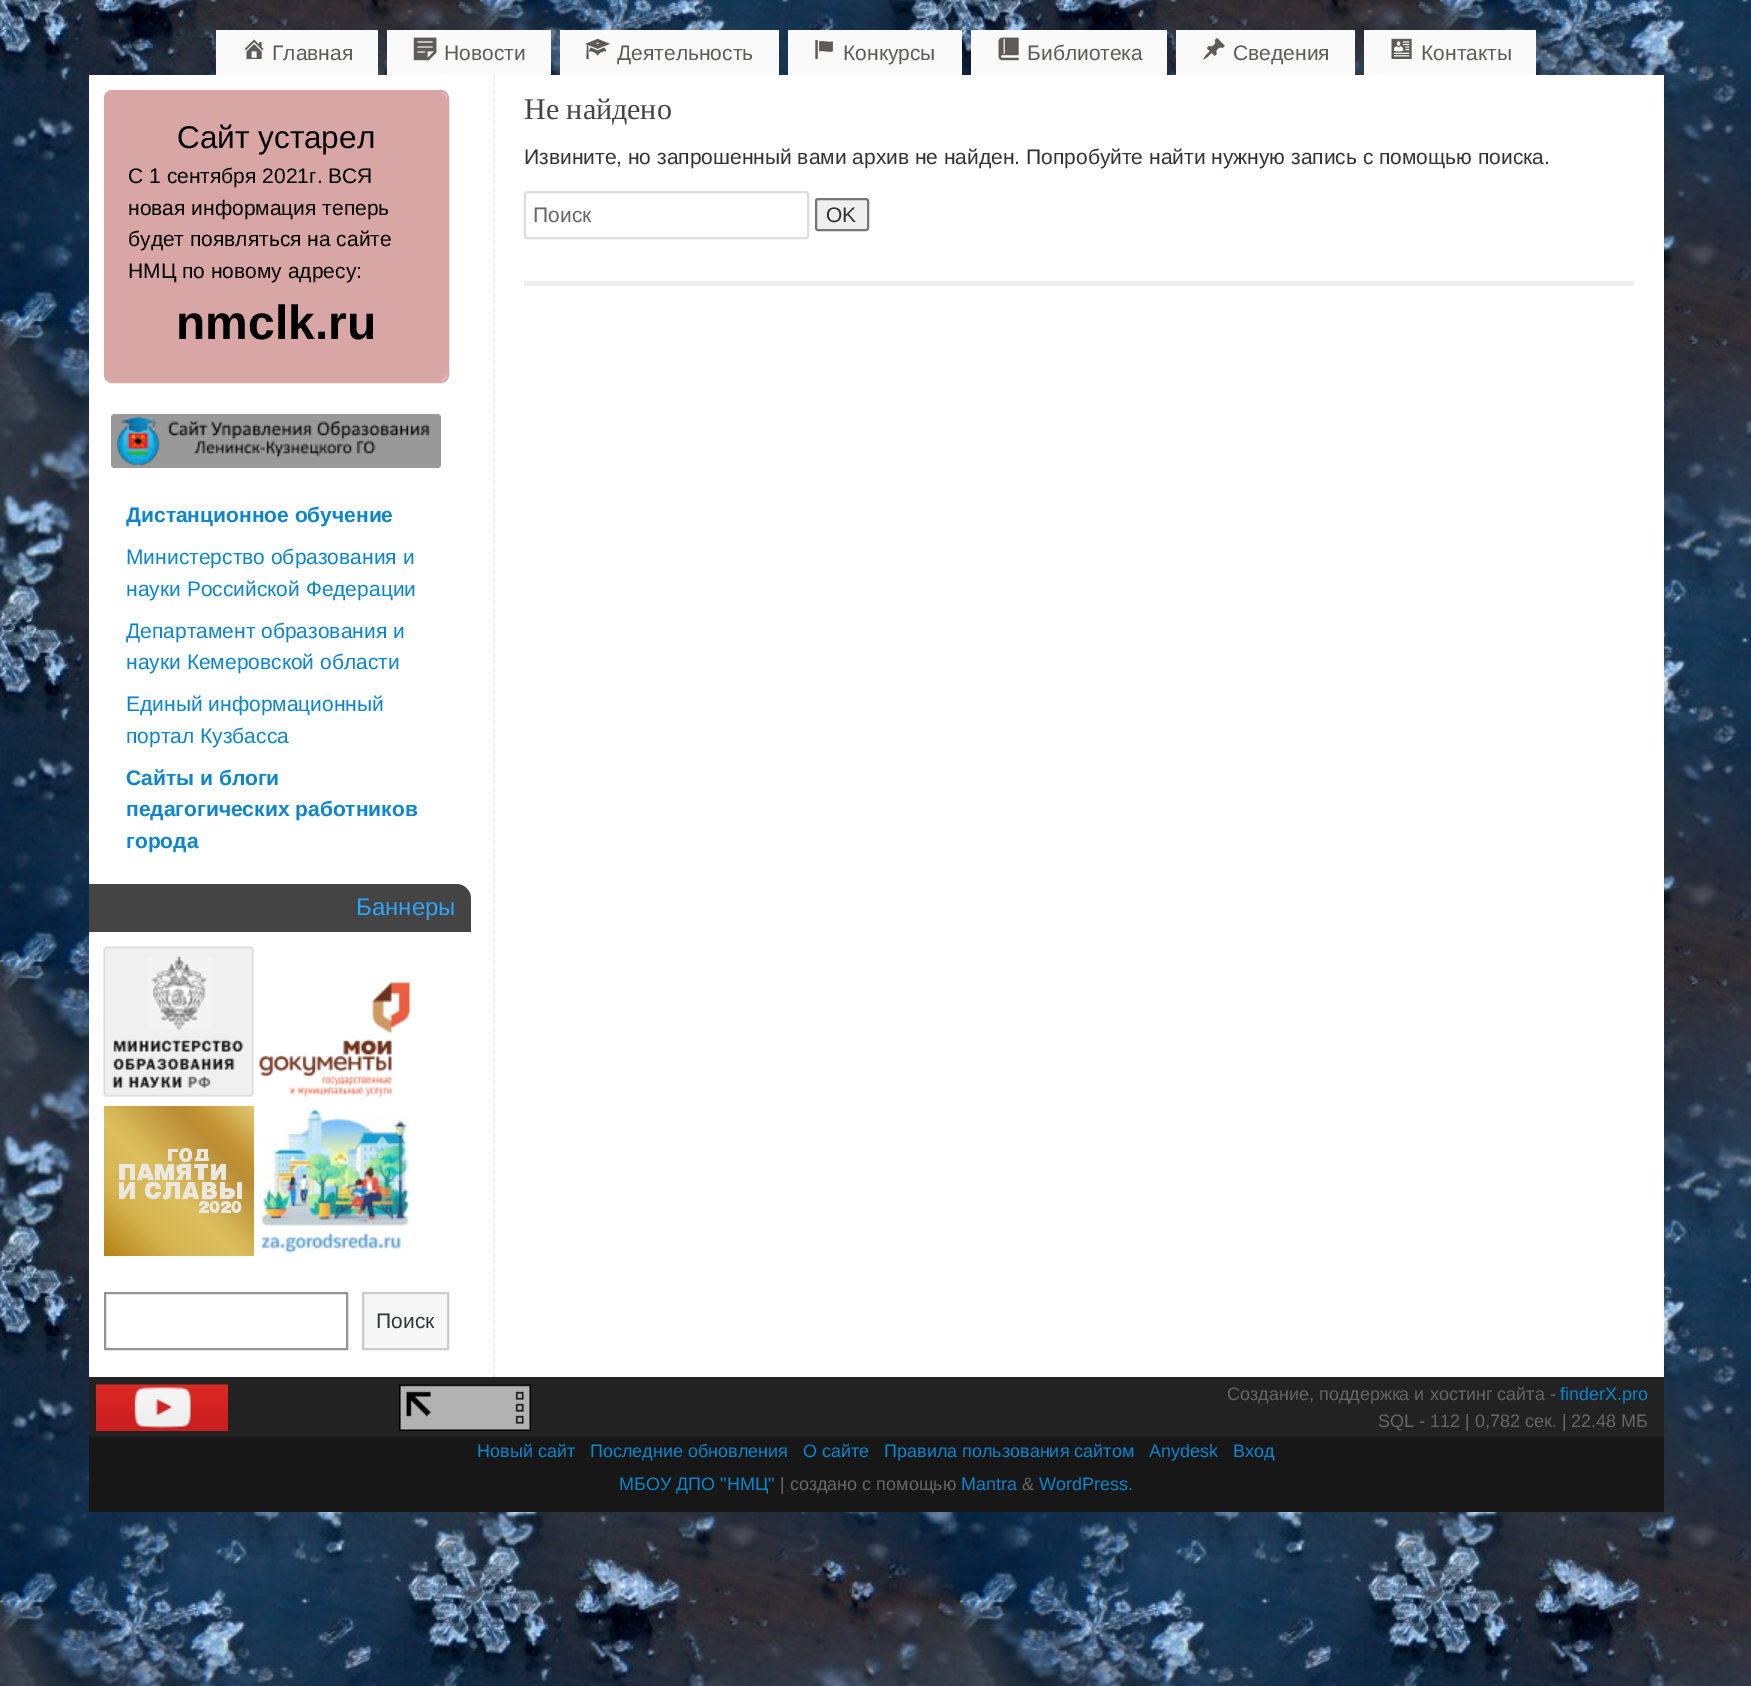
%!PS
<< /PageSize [1751 1686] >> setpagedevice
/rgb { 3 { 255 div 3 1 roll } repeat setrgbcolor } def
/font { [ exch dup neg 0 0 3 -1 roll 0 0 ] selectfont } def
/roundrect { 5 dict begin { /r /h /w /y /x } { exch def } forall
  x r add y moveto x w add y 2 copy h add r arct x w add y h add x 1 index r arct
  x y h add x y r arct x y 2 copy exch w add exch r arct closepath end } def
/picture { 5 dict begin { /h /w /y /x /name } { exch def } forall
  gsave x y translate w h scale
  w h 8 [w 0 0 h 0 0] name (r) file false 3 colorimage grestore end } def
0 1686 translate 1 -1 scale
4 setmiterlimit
255 255 255 rgb
0 0 1751 1686 rectfill
(img/1.rgb) 0 0 1751 1686 picture
250 250 250 rgb
216 30 162 45 rectfill
(img/2.rgb) 244 39 20 20 picture
387 30 164 45 rectfill
(img/3.rgb) 413 37 24 24 picture
560 30 219 45 rectfill
(img/4.rgb) 585 38 25 21 picture
788 30 174 45 rectfill
(img/5.rgb) 815 40 18 19 picture
971 30 196 45 rectfill
(img/6.rgb) 998 37 21 24 picture
1176 30 179 45 rectfill
(img/7.rgb) 1203 38 22 22 picture
1364 30 172 45 rectfill
(img/8.rgb) 1391 38 21 21 picture
255 255 255 rgb
89 75 1575 1302 rectfill
238 238 238 rgb
1.5 setlinewidth
[4.5 3] 0 setdash
494 75 moveto 494 1377 lineto stroke
217 166 166 rgb
2 setlinewidth
[] 0 setdash
105 91 343 291 7 roundrect stroke
106 93 340 287 7 roundrect gsave fill grestore
stroke
(img/9.rgb) 111 414 330 54 picture
68 68 68 rgb
89 884 moveto 456 884 lineto 464.5 884 471 890.5 471 899 curveto 471 932 lineto 89 932 lineto closepath fill
(img/10.rgb) 103 946 151 151 picture
(img/11.rgb) 259 982 151 115 picture
gsave 104 1106 moveto 254 1106 lineto 254 1256 lineto 104 1256 lineto closepath clip newpath
<< /ShadingType 2 /ColorSpace /DeviceRGB /Coords [254 1106 104 1256] /Extend [true true] /Function << /FunctionType 3 /Domain [0 1] /Functions [<< /FunctionType 2 /Domain [0 1] /C0 [0.886 0.78 0.435] /C1 [0.882 0.776 0.427] /N 1 >> << /FunctionType 2 /Domain [0 1] /C0 [0.878 0.773 0.424] /C1 [0.878 0.769 0.42] /N 1 >> << /FunctionType 2 /Domain [0 1] /C0 [0.875 0.761 0.412] /C1 [0.871 0.757 0.408] /N 1 >> << /FunctionType 2 /Domain [0 1] /C0 [0.871 0.753 0.404] /C1 [0.867 0.749 0.396] /N 1 >> << /FunctionType 2 /Domain [0 1] /C0 [0.859 0.741 0.388] /C1 [0.859 0.737 0.384] /N 1 >> << /FunctionType 2 /Domain [0 1] /C0 [0.855 0.729 0.376] /C1 [0.851 0.725 0.373] /N 1 >> << /FunctionType 2 /Domain [0 1] /C0 [0.851 0.722 0.369] /C1 [0.847 0.718 0.361] /N 1 >> << /FunctionType 2 /Domain [0 1] /C0 [0.843 0.71 0.353] /C1 [0.839 0.706 0.349] /N 1 >> << /FunctionType 2 /Domain [0 1] /C0 [0.835 0.702 0.345] /C1 [0.835 0.698 0.341] /N 1 >> << /FunctionType 2 /Domain [0 1] /C0 [0.831 0.69 0.333] /C1 [0.827 0.686 0.329] /N 1 >> << /FunctionType 2 /Domain [0 1] /C0 [0.824 0.678 0.322] /C1 [0.824 0.675 0.318] /N 1 >> << /FunctionType 2 /Domain [0 1] /C0 [0.816 0.667 0.31] /C1 [0.816 0.663 0.306] /N 1 >> << /FunctionType 2 /Domain [0 1] /C0 [0.812 0.655 0.298] /C1 [0.808 0.651 0.29] /N 1 >> << /FunctionType 2 /Domain [0 1] /C0 [0.808 0.647 0.286] /C1 [0.804 0.643 0.282] /N 1 >> << /FunctionType 2 /Domain [0 1] /C0 [0.796 0.635 0.275] /C1 [0.796 0.631 0.271] /N 1 >> << /FunctionType 2 /Domain [0 1] /C0 [0.792 0.627 0.267] /C1 [0.792 0.624 0.263] /N 1 >> << /FunctionType 2 /Domain [0 1] /C0 [0.788 0.616 0.251] /C1 [0.784 0.612 0.247] /N 1 >> << /FunctionType 2 /Domain [0 1] /C0 [0.78 0.608 0.243] /C1 [0.776 0.604 0.239] /N 1 >> << /FunctionType 2 /Domain [0 1] /C0 [0.773 0.596 0.231] /C1 [0.773 0.592 0.227] /N 1 >> << /FunctionType 2 /Domain [0 1] /C0 [0.769 0.588 0.224] /C1 [0.769 0.584 0.22] /N 1 >> << /FunctionType 2 /Domain [0 1] /C0 [0.761 0.576 0.208] /C1 [0.757 0.573 0.204] /N 1 >> << /FunctionType 2 /Domain [0 1] /C0 [0.753 0.569 0.2] /C1 [0.753 0.569 0.204] /N 1 >> << /FunctionType 2 /Domain [0 1] /C0 [0.753 0.565 0.204] /C1 [0.753 0.565 0.204] /N 1 >> << /FunctionType 2 /Domain [0 1] /C0 [0.749 0.565 0.204] /C1 [0.745 0.565 0.204] /N 1 >> << /FunctionType 2 /Domain [0 1] /C0 [0.745 0.565 0.204] /C1 [0.741 0.561 0.204] /N 1 >> << /FunctionType 2 /Domain [0 1] /C0 [0.737 0.561 0.204] /C1 [0.737 0.561 0.208] /N 1 >> << /FunctionType 2 /Domain [0 1] /C0 [0.733 0.561 0.208] /C1 [0.733 0.561 0.208] /N 1 >> << /FunctionType 2 /Domain [0 1] /C0 [0.729 0.557 0.208] /C1 [0.729 0.557 0.208] /N 1 >> << /FunctionType 2 /Domain [0 1] /C0 [0.733 0.561 0.212] /C1 [0.733 0.561 0.212] /N 1 >> << /FunctionType 2 /Domain [0 1] /C0 [0.737 0.569 0.216] /C1 [0.741 0.573 0.22] /N 1 >> << /FunctionType 2 /Domain [0 1] /C0 [0.745 0.576 0.227] /C1 [0.745 0.58 0.227] /N 1 >> << /FunctionType 2 /Domain [0 1] /C0 [0.749 0.584 0.231] /C1 [0.749 0.584 0.231] /N 1 >> << /FunctionType 2 /Domain [0 1] /C0 [0.753 0.592 0.235] /C1 [0.757 0.596 0.239] /N 1 >> << /FunctionType 2 /Domain [0 1] /C0 [0.757 0.596 0.243] /C1 [0.761 0.6 0.243] /N 1 >> << /FunctionType 2 /Domain [0 1] /C0 [0.765 0.604 0.251] /C1 [0.765 0.608 0.251] /N 1 >> << /FunctionType 2 /Domain [0 1] /C0 [0.769 0.612 0.255] /C1 [0.769 0.612 0.255] /N 1 >> << /FunctionType 2 /Domain [0 1] /C0 [0.773 0.62 0.259] /C1 [0.776 0.624 0.263] /N 1 >> << /FunctionType 2 /Domain [0 1] /C0 [0.776 0.624 0.267] /C1 [0.78 0.627 0.271] /N 1 >> << /FunctionType 2 /Domain [0 1] /C0 [0.784 0.635 0.275] /C1 [0.784 0.635 0.275] /N 1 >> << /FunctionType 2 /Domain [0 1] /C0 [0.788 0.643 0.278] /C1 [0.792 0.647 0.282] /N 1 >> << /FunctionType 2 /Domain [0 1] /C0 [0.792 0.647 0.286] /C1 [0.796 0.651 0.29] /N 1 >> << /FunctionType 2 /Domain [0 1] /C0 [0.8 0.659 0.294] /C1 [0.8 0.659 0.294] /N 1 >> << /FunctionType 2 /Domain [0 1] /C0 [0.804 0.663 0.298] /C1 [0.804 0.663 0.298] /N 1 >> << /FunctionType 2 /Domain [0 1] /C0 [0.808 0.671 0.306] /C1 [0.812 0.675 0.31] /N 1 >> << /FunctionType 2 /Domain [0 1] /C0 [0.812 0.675 0.31] /C1 [0.816 0.678 0.314] /N 1 >> << /FunctionType 2 /Domain [0 1] /C0 [0.82 0.686 0.318] /C1 [0.82 0.686 0.318] /N 1 >> << /FunctionType 2 /Domain [0 1] /C0 [0.824 0.694 0.325] /C1 [0.827 0.698 0.325] /N 1 >> << /FunctionType 2 /Domain [0 1] /C0 [0.827 0.698 0.329] /C1 [0.831 0.702 0.333] /N 1 >> << /FunctionType 2 /Domain [0 1] /C0 [0.835 0.71 0.337] /C1 [0.835 0.71 0.337] /N 1 >> << /FunctionType 2 /Domain [0 1] /C0 [0.839 0.714 0.341] /C1 [0.839 0.714 0.341] /N 1 >> << /FunctionType 2 /Domain [0 1] /C0 [0.843 0.722 0.349] /C1 [0.847 0.725 0.353] /N 1 >> << /FunctionType 2 /Domain [0 1] /C0 [0.847 0.725 0.353] /C1 [0.851 0.729 0.357] /N 1 >> << /FunctionType 2 /Domain [0 1] /C0 [0.855 0.737 0.361] /C1 [0.855 0.737 0.361] /N 1 >> << /FunctionType 2 /Domain [0 1] /C0 [0.859 0.741 0.365] /C1 [0.859 0.745 0.369] /N 1 >> << /FunctionType 2 /Domain [0 1] /C0 [0.863 0.749 0.373] /C1 [0.863 0.749 0.373] /N 1 >> << /FunctionType 2 /Domain [0 1] /C0 [0.863 0.745 0.369] /C1 [0.859 0.745 0.365] /N 1 >> << /FunctionType 2 /Domain [0 1] /C0 [0.859 0.745 0.365] /C1 [0.859 0.745 0.365] /N 1 >> << /FunctionType 2 /Domain [0 1] /C0 [0.859 0.741 0.361] /C1 [0.859 0.741 0.361] /N 1 >> << /FunctionType 2 /Domain [0 1] /C0 [0.855 0.737 0.357] /C1 [0.855 0.737 0.357] /N 1 >> << /FunctionType 2 /Domain [0 1] /C0 [0.855 0.737 0.357] /C1 [0.855 0.733 0.353] /N 1 >> << /FunctionType 2 /Domain [0 1] /C0 [0.855 0.733 0.353] /C1 [0.855 0.733 0.353] /N 1 >> << /FunctionType 2 /Domain [0 1] /C0 [0.851 0.733 0.349] /C1 [0.851 0.729 0.349] /N 1 >> << /FunctionType 2 /Domain [0 1] /C0 [0.851 0.729 0.349] /C1 [0.851 0.729 0.345] /N 1 >> << /FunctionType 2 /Domain [0 1] /C0 [0.847 0.725 0.341] /C1 [0.847 0.725 0.341] /N 1 >> << /FunctionType 2 /Domain [0 1] /C0 [0.847 0.725 0.337] /C1 [0.847 0.722 0.337] /N 1 >> << /FunctionType 2 /Domain [0 1] /C0 [0.847 0.722 0.337] /C1 [0.843 0.722 0.333] /N 1 >> << /FunctionType 2 /Domain [0 1] /C0 [0.843 0.718 0.333] /C1 [0.843 0.718 0.333] /N 1 >> << /FunctionType 2 /Domain [0 1] /C0 [0.843 0.718 0.329] /C1 [0.843 0.718 0.329] /N 1 >> << /FunctionType 2 /Domain [0 1] /C0 [0.843 0.718 0.329] /C1 [0.839 0.714 0.325] /N 1 >> << /FunctionType 2 /Domain [0 1] /C0 [0.839 0.714 0.322] /C1 [0.839 0.714 0.322] /N 1 >> << /FunctionType 2 /Domain [0 1] /C0 [0.839 0.71 0.322] /C1 [0.839 0.71 0.322] /N 1 >> << /FunctionType 2 /Domain [0 1] /C0 [0.839 0.71 0.318] /C1 [0.835 0.71 0.318] /N 1 >> << /FunctionType 2 /Domain [0 1] /C0 [0.835 0.71 0.318] /C1 [0.835 0.706 0.314] /N 1 >> << /FunctionType 2 /Domain [0 1] /C0 [0.831 0.702 0.31] /C1 [0.831 0.702 0.31] /N 1 >> << /FunctionType 2 /Domain [0 1] /C0 [0.827 0.698 0.306] /C1 [0.827 0.694 0.302] /N 1 >> << /FunctionType 2 /Domain [0 1] /C0 [0.824 0.69 0.294] /C1 [0.82 0.686 0.29] /N 1 >> << /FunctionType 2 /Domain [0 1] /C0 [0.82 0.682 0.286] /C1 [0.816 0.678 0.282] /N 1 >> << /FunctionType 2 /Domain [0 1] /C0 [0.812 0.675 0.275] /C1 [0.812 0.671 0.271] /N 1 >> << /FunctionType 2 /Domain [0 1] /C0 [0.808 0.663 0.267] /C1 [0.804 0.663 0.263] /N 1 >> << /FunctionType 2 /Domain [0 1] /C0 [0.804 0.659 0.259] /C1 [0.8 0.655 0.255] /N 1 >> << /FunctionType 2 /Domain [0 1] /C0 [0.796 0.647 0.247] /C1 [0.796 0.647 0.243] /N 1 >> << /FunctionType 2 /Domain [0 1] /C0 [0.792 0.643 0.239] /C1 [0.792 0.639 0.235] /N 1 >> << /FunctionType 2 /Domain [0 1] /C0 [0.784 0.635 0.227] /C1 [0.784 0.631 0.224] /N 1 >> << /FunctionType 2 /Domain [0 1] /C0 [0.78 0.627 0.22] /C1 [0.776 0.624 0.216] /N 1 >> << /FunctionType 2 /Domain [0 1] /C0 [0.773 0.616 0.212] /C1 [0.773 0.616 0.208] /N 1 >> << /FunctionType 2 /Domain [0 1] /C0 [0.769 0.612 0.204] /C1 [0.769 0.608 0.2] /N 1 >> << /FunctionType 2 /Domain [0 1] /C0 [0.765 0.604 0.192] /C1 [0.761 0.6 0.188] /N 1 >> << /FunctionType 2 /Domain [0 1] /C0 [0.757 0.592 0.18] /C1 [0.757 0.592 0.176] /N 1 >> << /FunctionType 2 /Domain [0 1] /C0 [0.753 0.588 0.173] /C1 [0.753 0.584 0.169] /N 1 >> << /FunctionType 2 /Domain [0 1] /C0 [0.749 0.576 0.161] /C1 [0.745 0.573 0.161] /N 1 >> << /FunctionType 2 /Domain [0 1] /C0 [0.745 0.573 0.157] /C1 [0.741 0.569 0.153] /N 1 >> << /FunctionType 2 /Domain [0 1] /C0 [0.737 0.561 0.145] /C1 [0.737 0.561 0.141] /N 1 >> << /FunctionType 2 /Domain [0 1] /C0 [0.733 0.557 0.137] /C1 [0.733 0.553 0.133] /N 1 >> << /FunctionType 2 /Domain [0 1] /C0 [0.725 0.545 0.125] /C1 [0.722 0.541 0.122] /N 1 >> << /FunctionType 2 /Domain [0 1] /C0 [0.718 0.537 0.114] /C1 [0.718 0.533 0.114] /N 1 >> << /FunctionType 2 /Domain [0 1] /C0 [0.714 0.529 0.11] /C1 [0.714 0.529 0.106] /N 1 >> << /FunctionType 2 /Domain [0 1] /C0 [0.71 0.522 0.098] /C1 [0.706 0.518 0.094] /N 1 >> << /FunctionType 2 /Domain [0 1] /C0 [0.706 0.518 0.09] /C1 [0.702 0.514 0.086] /N 1 >>] /Bounds [0.01 0.02 0.03 0.04 0.05 0.06 0.07 0.08 0.09 0.1 0.11 0.12 0.13 0.14 0.15 0.16 0.17 0.18 0.19 0.2 0.21 0.22 0.23 0.24 0.25 0.26 0.27 0.28 0.29 0.3 0.31 0.32 0.33 0.34 0.35 0.36 0.37 0.38 0.39 0.4 0.41 0.42 0.43 0.44 0.45 0.46 0.47 0.48 0.49 0.5 0.51 0.52 0.53 0.54 0.55 0.56 0.57 0.59 0.6 0.61 0.62 0.63 0.64 0.66 0.67 0.68 0.69 0.7 0.71 0.72 0.73 0.74 0.75 0.76 0.77 0.78 0.79 0.8 0.81 0.82 0.83 0.84 0.85 0.86 0.87 0.88 0.89 0.9 0.91 0.92 0.93 0.94 0.95 0.96 0.97 0.98 0.99] /Encode [0 1 0 1 0 1 0 1 0 1 0 1 0 1 0 1 0 1 0 1 0 1 0 1 0 1 0 1 0 1 0 1 0 1 0 1 0 1 0 1 0 1 0 1 0 1 0 1 0 1 0 1 0 1 0 1 0 1 0 1 0 1 0 1 0 1 0 1 0 1 0 1 0 1 0 1 0 1 0 1 0 1 0 1 0 1 0 1 0 1 0 1 0 1 0 1 0 1 0 1 0 1 0 1 0 1 0 1 0 1 0 1 0 1 0 1 0 1 0 1 0 1 0 1 0 1 0 1 0 1 0 1 0 1 0 1 0 1 0 1 0 1 0 1 0 1 0 1 0 1 0 1 0 1 0 1 0 1 0 1 0 1 0 1 0 1 0 1 0 1 0 1 0 1 0 1 0 1 0 1 0 1 0 1 0 1 0 1 0 1 0 1 0 1 0 1] >> >> shfill grestore
(img/12.rgb) 259 1105 151 151 picture
235 232 226 rgb
135 1164 moveto 119 1164 lineto 119 1180 lineto 125 1180 lineto 125 1168 lineto 130 1168 lineto 130 1180 lineto 135 1180 lineto closepath 124 1182 moveto 119 1182 lineto 119 1199 lineto 124 1199 lineto 130 1189 lineto 130 1199 lineto 135 1199 lineto 135 1182 lineto 130 1182 lineto 124 1192 lineto 124 1188 lineto closepath 186 1148 moveto 177 1148 177 1162 186 1162 curveto 194 1162 194 1148 186 1148 curveto closepath 236 1201 moveto 230 1201 230 1213 236 1213 curveto 243 1213 243 1201 236 1201 curveto closepath 215 1201 moveto 208 1201 208 1213 215 1213 curveto 221 1213 221 1201 215 1201 curveto closepath 178 1149 moveto 168 1149 lineto 168 1161 lineto 172 1161 lineto 172 1152 lineto 178 1152 lineto closepath 208 1149 moveto 197 1149 lineto 197 1152 198 1155 196 1158 curveto 195 1158 lineto 195 1161 lineto 209 1161 lineto 209 1158 lineto 208 1158 lineto closepath 186 1151 moveto 189 1151 189 1159 186 1159 curveto 182 1159 182 1151 186 1151 curveto closepath 204 1152 moveto 204 1158 lineto 200 1158 lineto 201 1156 201 1154 201 1152 curveto closepath 148 1164 moveto 142 1164 lineto 137 1180 lineto 142 1180 lineto 142 1178 lineto 148 1178 lineto 148 1180 lineto 154 1180 lineto closepath 162 1164 moveto 155 1164 lineto 155 1180 lineto 160 1180 lineto 160 1170 lineto 163 1180 lineto 167 1180 lineto 169 1170 lineto 169 1180 lineto 174 1180 lineto 174 1164 lineto 168 1164 lineto 165 1174 lineto closepath 191 1164 moveto 187 1164 174 1162 177 1170 curveto 177 1172 178 1173 180 1174 curveto 176 1180 lineto 182 1180 lineto 184 1174 lineto 186 1174 lineto 186 1180 lineto 191 1180 lineto closepath 208 1164 moveto 194 1164 lineto 194 1168 lineto 198 1168 lineto 198 1180 lineto 204 1180 lineto 204 1168 lineto 208 1168 lineto closepath 216 1164 moveto 211 1164 lineto 211 1180 lineto 216 1180 lineto 221 1171 lineto 221 1180 lineto 226 1180 lineto 226 1164 lineto 221 1164 lineto 215 1173 lineto 216 1169 lineto closepath 186 1168 moveto 186 1171 lineto 180 1171 181 1168 184 1168 curveto closepath 145 1169 moveto 147 1174 lineto 143 1174 lineto closepath 153 1182 moveto 150 1182 148 1183 146 1185 curveto 145 1191 lineto 145 1201 160 1202 161 1192 curveto 156 1192 lineto 155 1197 150 1195 150 1191 curveto 150 1185 156 1184 156 1189 curveto 161 1189 lineto 161 1184 158 1182 153 1182 curveto closepath 180 1182 moveto 166 1182 lineto 166 1185 167 1197 163 1195 curveto 163 1199 lineto 172 1201 171 1193 171 1186 curveto 175 1186 lineto 175 1199 lineto 180 1199 lineto closepath 194 1182 moveto 188 1182 lineto 182 1199 lineto 188 1199 lineto 188 1197 lineto 193 1197 lineto 194 1199 lineto 199 1199 lineto closepath 210 1182 moveto 202 1182 lineto 202 1199 lineto 206 1199 216 1201 217 1194 curveto 217 1192 216 1190 214 1190 curveto 219 1187 215 1182 210 1182 curveto closepath 225 1182 moveto 220 1182 lineto 220 1199 lineto 228 1199 lineto 232 1199 235 1197 235 1193 curveto 235 1190 232 1188 228 1188 curveto 225 1188 lineto closepath 242 1182 moveto 237 1182 lineto 237 1199 lineto 242 1199 lineto closepath 209 1186 moveto 212 1186 212 1189 207 1189 curveto 207 1186 lineto closepath 191 1187 moveto 193 1193 lineto 189 1193 lineto closepath 209 1192 moveto 211 1192 214 1194 211 1195 curveto 207 1195 lineto 207 1192 lineto closepath 227 1192 moveto 231 1192 231 1195 225 1195 curveto 225 1192 lineto closepath 204 1201 moveto 201 1201 199 1202 199 1206 curveto 202 1206 lineto 202 1202 207 1204 204 1206 curveto 202 1208 199 1209 199 1213 curveto 209 1213 lineto 209 1210 lineto 203 1210 lineto 208 1207 lineto 211 1204 207 1201 204 1201 curveto closepath 226 1201 moveto 223 1201 221 1202 221 1206 curveto 224 1206 lineto 224 1202 229 1204 226 1206 curveto 224 1208 221 1209 221 1213 curveto 231 1213 lineto 231 1210 lineto 225 1210 lineto 230 1207 lineto 233 1204 229 1201 226 1201 curveto closepath 214 1203 moveto 217 1203 217 1210 215 1210 curveto 212 1210 212 1203 214 1203 curveto closepath 236 1203 moveto 239 1203 239 1210 236 1210 curveto 234 1210 234 1203 236 1203 curveto closepath eofill
148 148 148 rgb
105 1293 242 56 rectstroke
247 247 247 rgb
363 1293 moveto 448 1293 lineto 448 1349 lineto 363 1349 lineto closepath gsave fill grestore
204 204 204 rgb
stroke
238 238 238 rgb
524 281 1110 5 rectfill
221 221 221 rgb
525 192 283 46 2 roundrect stroke
239 239 239 rgb
816 199 52 31 2 roundrect gsave fill grestore
118 118 118 rgb
stroke
34 34 34 rgb
89 1377 1575 60 rectfill
(img/13.rgb) 96 1384 132 47 picture
(img/14.rgb) 399 1384 132 47 picture
23 23 23 rgb
89 1437 1575 75 rectfill
/LiberationSans-Regular 21 font
95 91 91 rgb
[
  [(Главная) 272 60]
  [(Новости) 444 60]
  [(Деятельность) 617 60]
  [(Конкурсы) 843 60]
  [(Библиотека) 1027 60]
  [(Сведения) 1233 60]
  [(Контакты) 1421 60]
] { aload pop moveto show } forall
/LiberationSans-Regular 31.5 font
0 0 0 rgb
177 148 moveto (Сайт устарел) show
/LiberationSans-Regular 21 font
[
  [(С 1 сентября 2021г. ВСЯ) 128 183]
  [(новая информация теперь) 128 215]
  [(будет появляться на сайте) 128 246]
  [(НМЦ по новому адресу:) 128 278]
] { aload pop moveto show } forall
/LiberationSans-Bold 48 font
176 339 moveto (nmclk.ru) show
/LiberationSans-Bold 21 font
13 133 204 rgb
126 522 moveto (Дистанционное обучение) show
/LiberationSans-Regular 21 font
[
  [(Министерство образования и) 126 564]
  [(науки Российской Федерации) 126 596]
  [(Департамент образования и) 126 638]
  [(науки Кемеровской области) 126 669]
  [(Единый информационный) 126 711]
  [(портал Кузбасса) 126 743]
] { aload pop moveto show } forall
/LiberationSans-Bold 21 font
[
  [(Сайты и блоги) 126 785]
  [(педагогических работников) 126 816]
  [(города) 126 848]
] { aload pop moveto show } forall
/LiberationSans-Regular 24 font
46 165 253 rgb
356 915 moveto (Баннеры) show
/LiberationSans-Regular 21 font
50 55 60 rgb
376 1328 moveto (Поиск) show
/LiberationSerif-Regular 30 font
68 68 68 rgb
524 119 moveto (Не найдено) show
/LiberationSans-Regular 21 font
51 51 51 rgb
524 164 moveto (Извините, но запрошенный вами архив не найден. Попробуйте найти нужную запись с помощью поиска.) show
102 102 102 rgb
533 222 moveto (Поиск) show
51 51 51 rgb
826 222 moveto (OK) show
/LiberationSans-Regular 18 font
102 102 102 rgb
1227 1400 moveto (Создание, поддержка и хостинг сайта -) show
13 133 204 rgb
1560 1400 moveto (finderX.pro) show
102 102 102 rgb
1378 1427 moveto (SQL - 112 | 0,782 сек. | 22.48 МБ) show
13 133 204 rgb
[
  [(Новый сайт) 477 1457]
  [(Последние обновления) 590 1457]
  [(О сайте) 803 1457]
  [(Правила пользования сайтом) 884 1457]
  [(Anydesk) 1149 1457]
  [(Вход) 1233 1457]
  [(МБОУ ДПО "НМЦ") 619 1490]
] { aload pop moveto show } forall
102 102 102 rgb
780 1490 moveto (| создано с помощью) show
13 133 204 rgb
961 1490 moveto (Mantra) show
102 102 102 rgb
1022 1490 moveto (&) show
13 133 204 rgb
1039 1490 moveto (WordPress.) show
showpage
